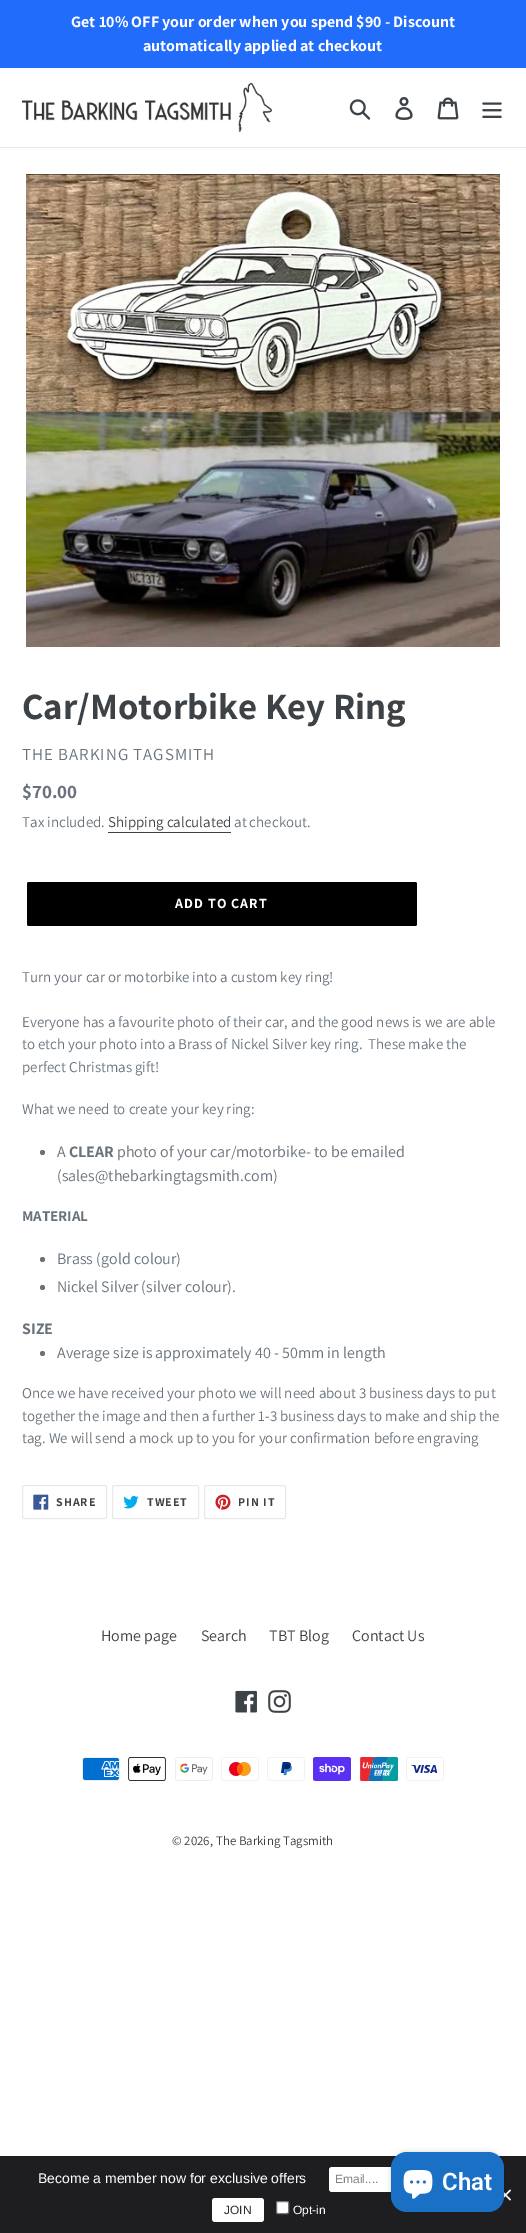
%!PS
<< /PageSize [526 2233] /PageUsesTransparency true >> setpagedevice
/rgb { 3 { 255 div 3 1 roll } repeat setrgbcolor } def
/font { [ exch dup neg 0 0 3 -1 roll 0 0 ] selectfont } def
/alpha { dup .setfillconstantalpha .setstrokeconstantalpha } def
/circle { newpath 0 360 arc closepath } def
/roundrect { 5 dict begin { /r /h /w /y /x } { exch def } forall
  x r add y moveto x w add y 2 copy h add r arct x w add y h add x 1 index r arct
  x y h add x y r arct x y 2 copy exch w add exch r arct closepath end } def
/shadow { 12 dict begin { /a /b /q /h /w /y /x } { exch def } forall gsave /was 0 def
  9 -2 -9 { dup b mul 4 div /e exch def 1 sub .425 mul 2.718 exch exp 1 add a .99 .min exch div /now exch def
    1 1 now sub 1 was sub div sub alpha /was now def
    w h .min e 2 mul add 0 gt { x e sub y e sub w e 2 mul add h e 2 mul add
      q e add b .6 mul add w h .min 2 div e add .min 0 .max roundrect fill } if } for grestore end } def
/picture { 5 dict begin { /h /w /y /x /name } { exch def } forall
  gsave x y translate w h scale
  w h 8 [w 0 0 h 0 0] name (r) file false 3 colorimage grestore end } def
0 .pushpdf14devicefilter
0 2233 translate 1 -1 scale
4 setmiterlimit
255 255 255 rgb
0 0 526 2233 rectfill
34 108 251 rgb
0 0 526 68 rectfill
232 233 235 rgb
0 147 526 1 rectfill
(img/1.rgb) 22 83 250 49 picture
(img/2.rgb) 349 99 22 21 picture
(img/3.rgb) 395 97 18 23 picture
(img/4.rgb) 437 97 22 23 picture
(img/5.rgb) 482 102 20 16 picture
(img/6.rgb) 26 174 474 473 picture
61 66 70 rgb
108 832 123 1 rectfill
0 0 0 rgb
27 882 390 44 2 roundrect fill
105 114 123 rgb
42.5 1152.5 2.5 circle fill
42.5 1259.5 2.5 circle fill
42.5 1287.5 2.5 circle fill
42.5 1353.5 2.5 circle fill
232 233 235 rgb
22.5 1485.5 84 33 1.5 roundrect stroke
(img/7.rgb) 33 1494 16 16 picture
112.5 1485.5 86 33 1.5 roundrect stroke
(img/8.rgb) 123 1495 16 14 picture
204.5 1485.5 81 33 1.5 roundrect stroke
(img/9.rgb) 215 1494 16 16 picture
(img/10.rgb) 235 1690 22 23 picture
(img/11.rgb) 268 1690 23 23 picture
(img/12.rgb) 82 1757 38 24 picture
(img/13.rgb) 128 1757 38 24 picture
(img/14.rgb) 175 1757 38 24 picture
(img/15.rgb) 221 1757 38 24 picture
(img/16.rgb) 267 1757 38 24 picture
(img/17.rgb) 313 1757 38 24 picture
(img/18.rgb) 360 1757 38 24 picture
(img/19.rgb) 406 1757 38 24 picture
30 30 32 rgb
0 2156 526 77 rectfill
255 255 255 rgb
329 2167 149 25 3 roundrect fill
212 2198 52 24 3 roundrect fill
276.5 2201.5 12 12 1.5 roundrect gsave fill grestore
118 118 118 rgb
stroke
(img/20.rgb) 503 2189 8 12 picture
0 0 0 rgb
391 2152 113 60 16 2.5 0.15 shadow
26 112 196 rgb
391 2152 113 60 16 roundrect fill
(img/21.rgb) 403 2170 30 29 picture
/Assistant-Bold 16 font
255 255 255 rgb
71 27 moveto (Get 10% OFF your order when you spend $90 - Discount) show
143 51 moveto (automatically applied at checkout) show
/Assistant-Bold 37 font
61 66 70 rgb
22 719 moveto (Car/Motorbike Key Ring) show
/Assistant-Regular 16.9 font
105 114 123 rgb
22 760 moveto 1 0 (THE BARKING TAGSMITH) ashow
/Assistant-Bold 19 font
22 798 moveto ($70.00) show
/Assistant-Regular 15 font
22 827 moveto (Tax included.) show
61 66 70 rgb
108 827 moveto (Shipping calculated) show
105 114 123 rgb
234 827 moveto (at checkout.) show
/Assistant-Bold 14 font
255 255 255 rgb
175 908 moveto 1.1 0 (ADD TO CART) ashow
/Assistant-Regular 15 font
105 114 123 rgb
[
  [(Turn your car or motorbike into a custom key ring!) 22 982]
  [(Everyone has a favourite photo of their car, and the good news is we are able) 22 1027]
  [(to etch your photo into a Brass of Nickel Silver key ring.  These make the) 22 1049]
  [(perfect Christmas gift!) 22 1072]
  [(What we need to create your key ring:) 22 1114]
] { aload pop moveto show } forall
/Assistant-Regular 16 font
57 1157 moveto (A) show
/Assistant-Bold 16 font
69 1157 moveto (CLEAR) show
/Assistant-Regular 16 font
117 1157 moveto (photo of your car/motorbike- to be emailed) show
57 1181 moveto (\(sales@thebarkingtagsmith.com\)) show
/Assistant-Bold 15 font
22 1221 moveto (MATERIAL) show
/Assistant-Regular 16 font
57 1264 moveto (Brass \(gold colour\)) show
57 1292 moveto (Nickel Silver \(silver colour\).) show
/Assistant-Bold 16 font
22 1334 moveto (SIZE) show
/Assistant-Regular 16 font
57 1358 moveto (Average size is approximately 40 - 50mm in length) show
/Assistant-Regular 15 font
[
  [(Once we have received your photo we will need about 3 business days to put) 22 1398]
  [(together the image and then a further 1-3 business days to make and ship the) 22 1421]
  [(tag. We will send a mock up to you for your confirmation before engraving) 22 1443]
] { aload pop moveto show } forall
/Assistant-Bold 12 font
61 66 70 rgb
56 1506 moveto 1 0 (SHARE) ashow
147 1506 moveto 1 0 (TWEET) ashow
238 1506 moveto 1 0 (PIN IT) ashow
/Assistant-Regular 16 font
[
  [(Home page) 101 1641]
  [(Search) 201 1641]
  [(TBT Blog) 269 1641]
  [(Contact Us) 352 1641]
] { aload pop moveto show } forall
/Assistant-Regular 13 font
172 1845 moveto (© 2026, The Barking Tagsmith) show
/LiberationSans-Regular 14 font
255 255 255 rgb
38 2183 moveto (Become a member now for exclusive offers) show
/LiberationSans-Regular 12 font
127 128 128 rgb
335 2183 moveto (Email....) show
42 44 43 rgb
224 2214 moveto (JOIN) show
255 255 255 rgb
293 2214 moveto (Opt-in) show
/Roboto-SemiBold 24 font
442 2190 moveto (Chat) show
.poppdf14devicefilter showpage
